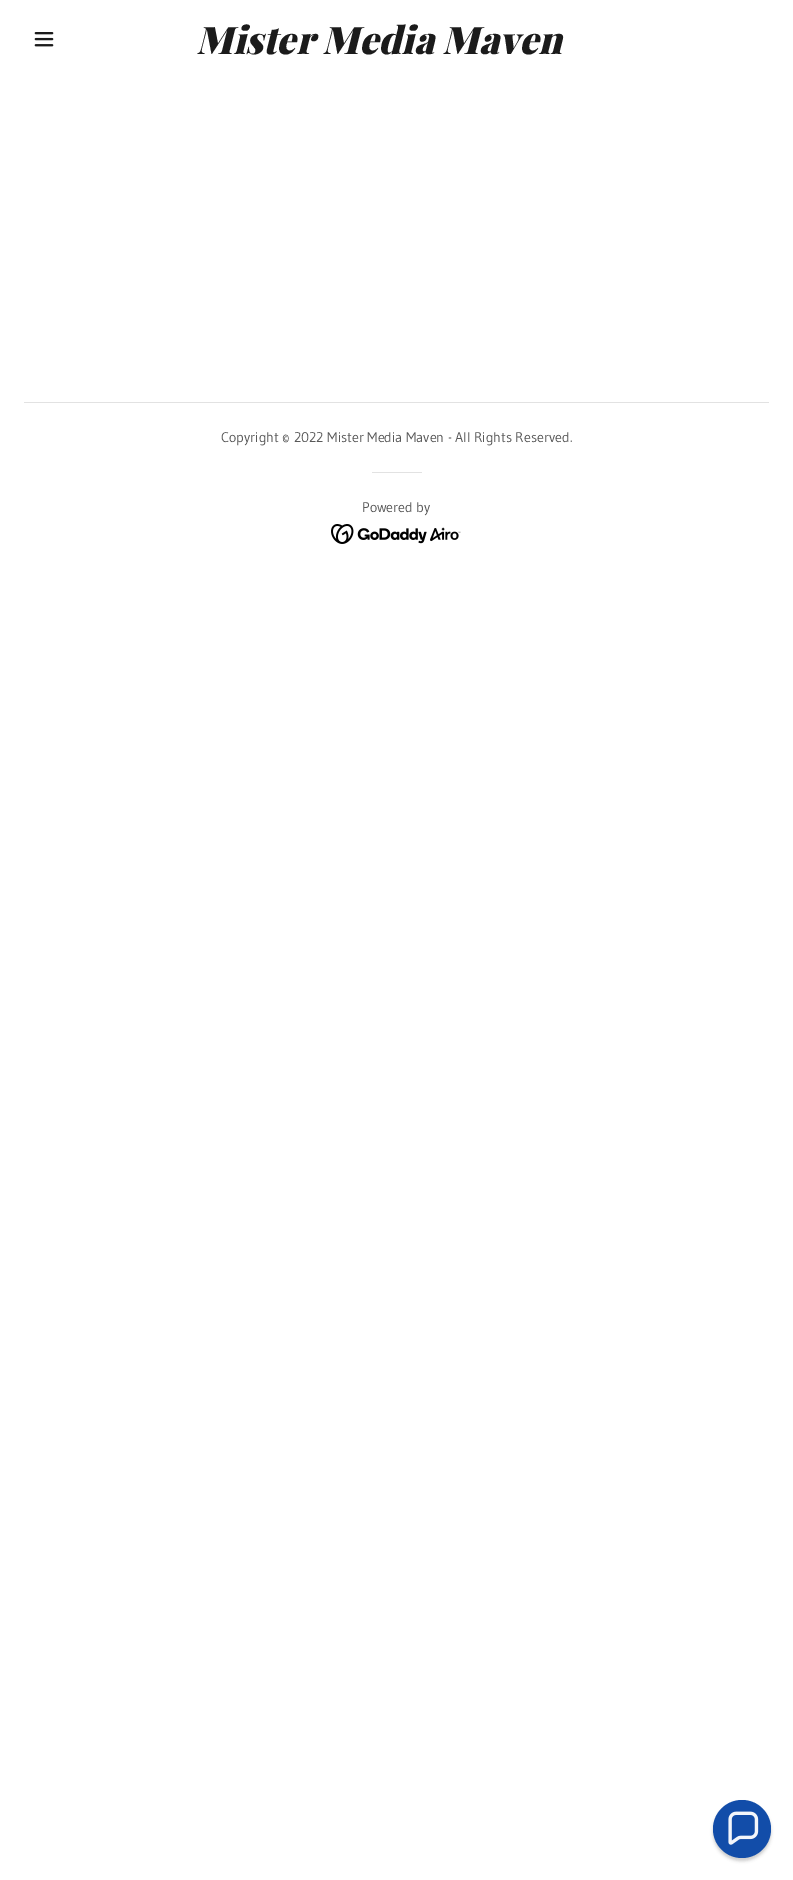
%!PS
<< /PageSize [793 1880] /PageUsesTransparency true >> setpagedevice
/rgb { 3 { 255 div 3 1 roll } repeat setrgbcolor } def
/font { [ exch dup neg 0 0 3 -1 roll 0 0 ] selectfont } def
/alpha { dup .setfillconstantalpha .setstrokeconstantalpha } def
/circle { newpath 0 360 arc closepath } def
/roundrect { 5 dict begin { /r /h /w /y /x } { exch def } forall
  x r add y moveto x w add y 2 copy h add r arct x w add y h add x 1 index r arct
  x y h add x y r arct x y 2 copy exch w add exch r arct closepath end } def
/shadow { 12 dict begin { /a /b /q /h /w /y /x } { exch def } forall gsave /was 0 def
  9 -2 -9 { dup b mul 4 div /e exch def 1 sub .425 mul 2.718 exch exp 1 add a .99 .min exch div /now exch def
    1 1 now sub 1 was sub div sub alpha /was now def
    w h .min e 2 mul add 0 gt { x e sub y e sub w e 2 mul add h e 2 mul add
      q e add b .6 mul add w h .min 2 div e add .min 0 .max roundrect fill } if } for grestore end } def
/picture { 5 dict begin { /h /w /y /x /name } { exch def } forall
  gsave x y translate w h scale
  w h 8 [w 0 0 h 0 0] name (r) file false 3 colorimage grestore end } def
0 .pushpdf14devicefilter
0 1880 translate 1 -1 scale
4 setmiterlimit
255 255 255 rgb
0 0 793 1880 rectfill
(img/1.rgb) 34 32 20 15 picture
226 226 226 rgb
24 402 745 1 rectfill
372 472 50 1 rectfill
(img/2.rgb) 331 524 130 20 picture
13 13 13 rgb
713 1803 58 58 29 1.5 0.2 shadow
18 77 169 rgb
742 1829 29 circle fill
(img/3.rgb) 728 1811 31 34 picture
/PlayfairDisplay-BlackItalic 38 font
27 27 27 rgb
196 54 moveto (Mister Media Maven) show
/Gudea-Regular 14 font
89 89 89 rgb
221 442 moveto (Copyright © 2022 Mister Media Maven - All Rights Reserved.) show
362 512 moveto (Powered by) show
.poppdf14devicefilter showpage
